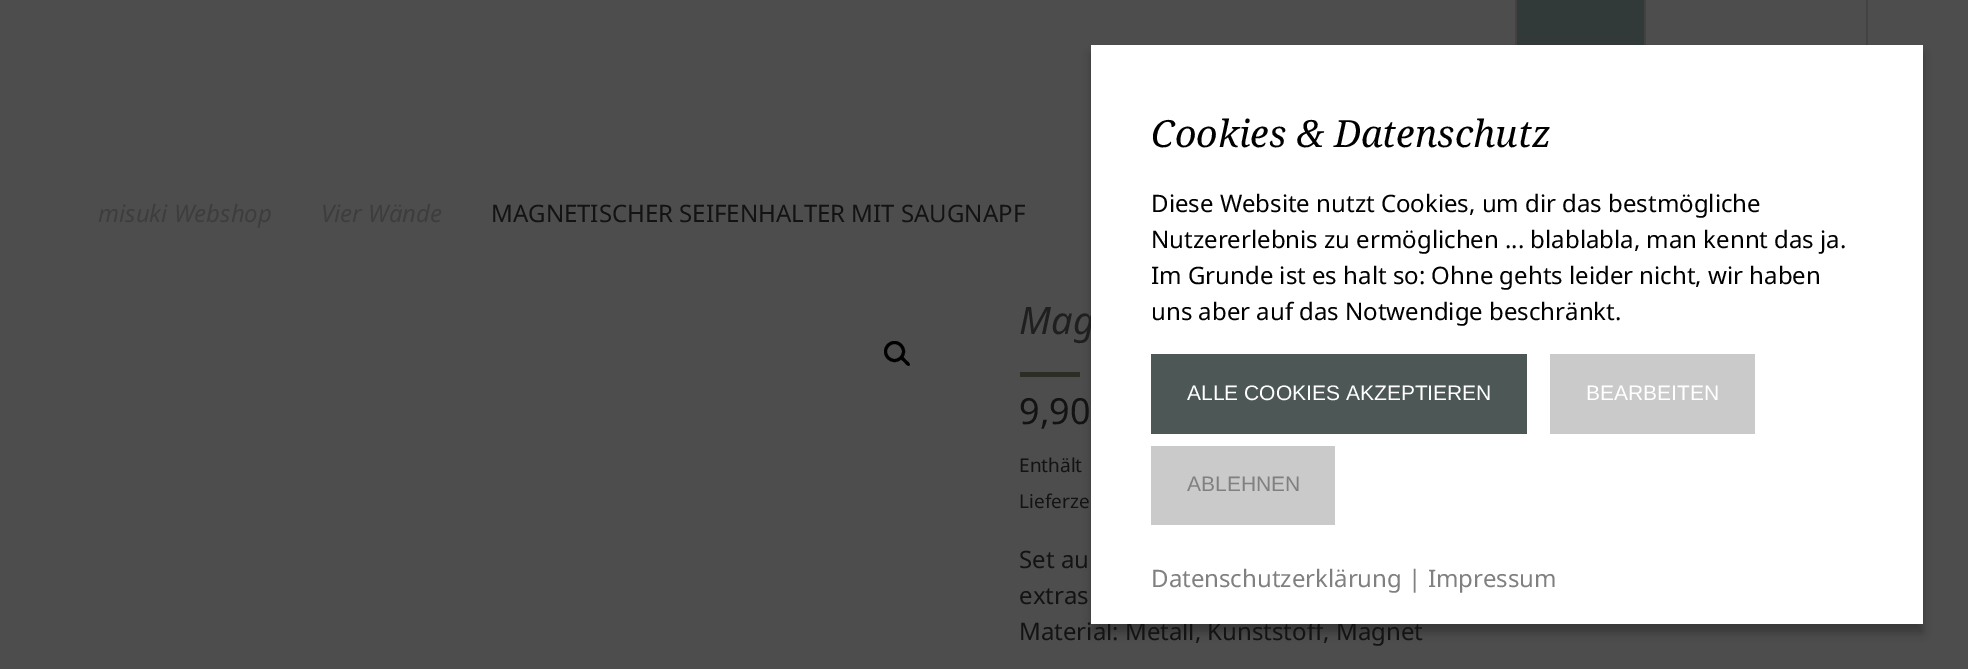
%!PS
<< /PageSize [1968 669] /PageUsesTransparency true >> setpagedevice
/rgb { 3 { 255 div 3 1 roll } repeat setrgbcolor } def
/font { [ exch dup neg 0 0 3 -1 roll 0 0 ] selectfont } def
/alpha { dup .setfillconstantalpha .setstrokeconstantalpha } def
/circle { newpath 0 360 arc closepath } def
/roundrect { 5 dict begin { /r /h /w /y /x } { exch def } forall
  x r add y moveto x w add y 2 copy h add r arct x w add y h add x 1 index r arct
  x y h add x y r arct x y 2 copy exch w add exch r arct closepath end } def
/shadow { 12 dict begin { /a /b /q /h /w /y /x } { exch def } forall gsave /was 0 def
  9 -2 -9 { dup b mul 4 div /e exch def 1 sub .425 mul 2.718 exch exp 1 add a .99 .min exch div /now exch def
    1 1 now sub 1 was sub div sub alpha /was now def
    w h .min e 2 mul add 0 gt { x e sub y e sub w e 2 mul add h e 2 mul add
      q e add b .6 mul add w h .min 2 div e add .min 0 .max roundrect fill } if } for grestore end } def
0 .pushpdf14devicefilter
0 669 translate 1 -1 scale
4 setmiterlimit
77 77 77 rgb
0 0 1968 669 rectfill
[
  [1517 0 127 45 49 57 57]
  [1644 0 2 45 66 66 66]
  [1515 0 2 45 66 66 66]
  [1866 0 2 45 66 66 66]
] { aload pop rgb rectfill } forall
0 0 0 rgb
3 setlinewidth
894.5 351.5 9 circle stroke
901 357 moveto 902.5 355 905 359 906 360 curveto 907 361 911 363.5 909.5 365.5 curveto 907.5 367 905 363 904 362 curveto 903 361 899 358.5 901 357 curveto closepath fill
44 46 38 rgb
1020 372 60 5 rectfill
0 0 0 rgb
1091 54 832 579 0 4.5 0.25 shadow
/NotoSans-Italic 24 font
61 61 61 rgb
98 222 moveto (misuki Webshop) show
321 222 moveto (Vier Wände) show
/NotoSans-Regular 24 font
19 19 19 rgb
491 222 moveto (MAGNETISCHER SEIFENHALTER MIT SAUGNAPF) show
/NotoSans-Italic 38 font
31 31 31 rgb
1019 334 moveto (Mag) show
/NotoSans-Regular 36 font
19 19 19 rgb
1019 424 moveto (9,90) show
/NotoSans-Regular 19 font
1019 472 moveto (Enthält) show
1019 508 moveto (Lieferze) show
/NotoSans-Regular 24 font
[
  [(Set au) 1019 568]
  [(extras) 1019 604]
  [(Material: Metall, Kunststoff, Magnet) 1019 640]
] { aload pop moveto show } forall
255 255 255 rgb
1091 45 832 579 rectfill
/NotoSerif-Italic 37.5 font
0 0 0 rgb
1151 147 moveto (Cookies & Datenschutz) show
/NotoSans-Regular 24 font
[
  [(Diese Website nutzt Cookies, um dir das bestmögliche) 1151 212]
  [(Nutzererlebnis zu ermöglichen ... blablabla, man kennt das ja.) 1151 248]
  [(Im Grunde ist es halt so: Ohne gehts leider nicht, wir haben) 1151 284]
  [(uns aber auf das Notwendige beschränkt.) 1151 320]
] { aload pop moveto show } forall
77 87 86 rgb
1151 354 376 80 rectfill
/LiberationSans-Regular 21 font
255 255 255 rgb
1187 400 moveto (ALLE COOKIES AKZEPTIEREN) show
202 202 202 rgb
1550 354 205 80 rectfill
255 255 255 rgb
1586 400 moveto (BEARBEITEN) show
202 202 202 rgb
1151 446 184 79 rectfill
128 128 128 rgb
1187 491 moveto (ABLEHNEN) show
/NotoSans-Regular 24 font
1151 587 moveto (Datenschutzerklärung | Impressum) show
.poppdf14devicefilter showpage
